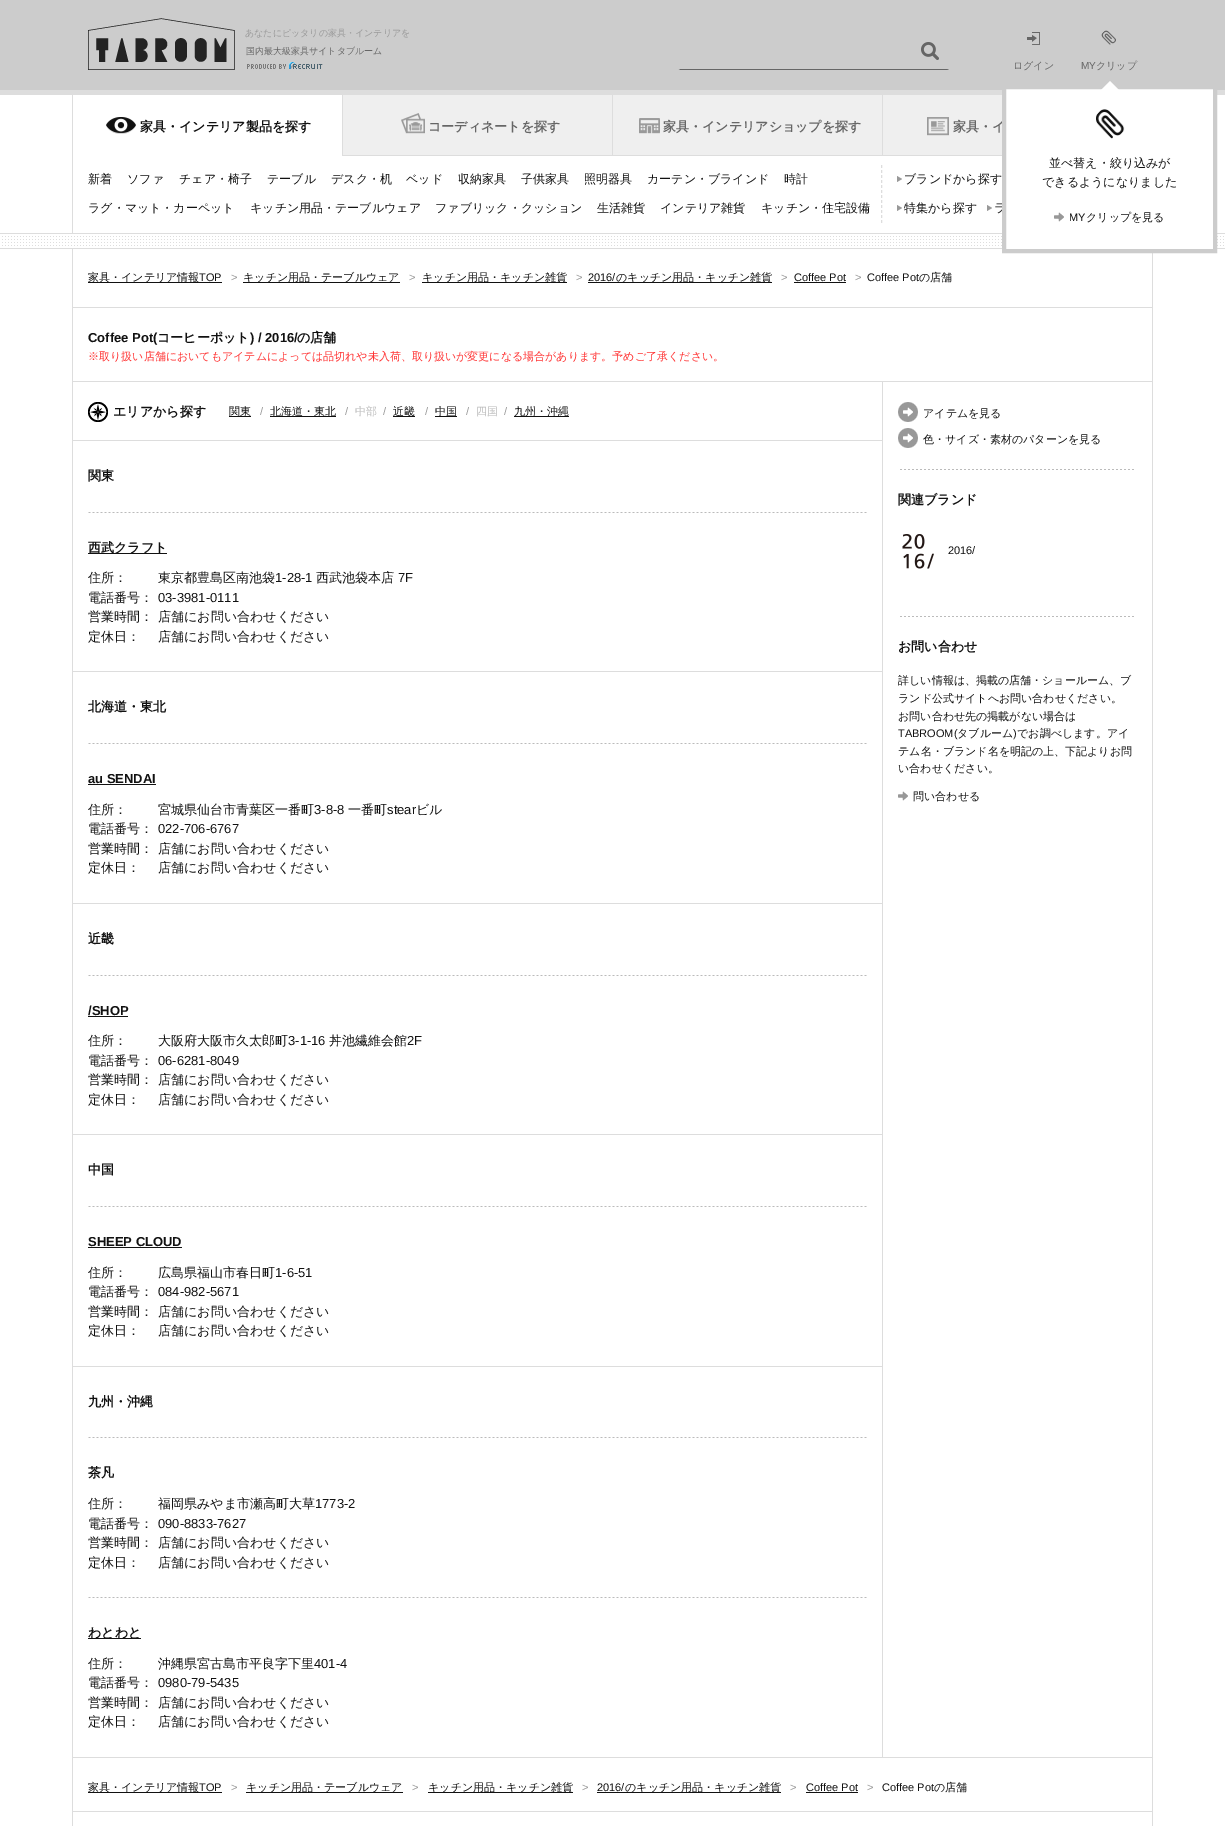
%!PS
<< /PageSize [1225 1826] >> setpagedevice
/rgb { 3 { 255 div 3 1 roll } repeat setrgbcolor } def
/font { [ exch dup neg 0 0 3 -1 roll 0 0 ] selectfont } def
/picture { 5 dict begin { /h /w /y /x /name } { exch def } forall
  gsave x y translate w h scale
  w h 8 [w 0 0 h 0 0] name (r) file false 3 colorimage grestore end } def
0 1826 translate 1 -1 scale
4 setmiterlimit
255 255 255 rgb
0 0 1225 1826 rectfill
204 204 204 rgb
0 0 1225 90 rectfill
221 221 221 rgb
0 90 1225 5 rectfill
(img/1.rgb) 88 18 147 52 picture
(img/2.rgb) 247 62 76 7 picture
102 102 102 rgb
949 70 moveto 678 70 lineto 680 69 lineto 947 69 lineto closepath fill
204 204 204 rgb
678 70 moveto 678 28 lineto 680 30 lineto 680 69 lineto closepath fill
(img/3.rgb) 921 42 18 18 picture
(img/4.rgb) 1027 32 13 13 picture
(img/5.rgb) 1101 30 15 15 picture
221 221 221 rgb
72 95 1 138 rectfill
239 239 239 rgb
343 95 659 60 rectfill
(img/8.rgb) 106 117 30 17 picture
221 221 221 rgb
342 155 660 1 rectfill
342 95 1 61 rectfill
(img/9.rgb) 401 113 24 21 picture
612 95 1 61 rectfill
(img/10.rgb) 639 118 21 16 picture
882 95 1 61 rectfill
(img/11.rgb) 927 117 22 19 picture
[3 2] 0 setdash
881.5 165 moveto 881.5 223 lineto stroke
153 153 153 rgb
897 182 moveto 897 176 lineto 902 179 lineto closepath fill
897 211 moveto 897 205 lineto 902 208 lineto closepath fill
987 211 moveto 987 205 lineto 992 208 lineto closepath fill
(img/12.rgb) 0 236 1225 13 picture
[
  [0 233 1225 1 221 221 221]
  [1152 249 1 1577 221 221 221]
  [72 249 1 1577 221 221 221]
  [73 307 1079 1 221 221 221]
  [88 282 134 1 17 17 17]
  [243 282 157 1 17 17 17]
  [422 282 145 1 17 17 17]
  [588 282 184 1 17 17 17]
  [794 282 52 1 17 17 17]
  [73 381 1079 1 221 221 221]
] { aload pop rgb rectfill } forall
(img/13.rgb) 88 402 20 20 picture
[
  [229 416 22 1 17 17 17]
  [270 416 66 1 17 17 17]
  [393 416 22 1 17 17 17]
  [435 416 22 1 17 17 17]
  [514 416 55 1 17 17 17]
  [73 440 810 1 221 221 221]
  [882 382 1 1375 221 221 221]
] { aload pop rgb rectfill } forall
(img/14.rgb) 88 512 779 1 picture
17 17 17 rgb
88 553 79 1 rectfill
221 221 221 rgb
73 671 809 1 rectfill
(img/14.rgb) 88 743 779 1 picture
17 17 17 rgb
88 784 68 1 rectfill
221 221 221 rgb
73 903 809 1 rectfill
(img/14.rgb) 88 975 779 1 picture
17 17 17 rgb
88 1016 40 1 rectfill
221 221 221 rgb
73 1134 809 1 rectfill
(img/14.rgb) 88 1206 779 1 picture
17 17 17 rgb
88 1247 94 1 rectfill
221 221 221 rgb
73 1366 809 1 rectfill
(img/14.rgb) 88 1437 779 1 picture
(img/14.rgb) 88 1597 779 1 picture
17 17 17 rgb
88 1638 53 1 rectfill
(img/15.rgb) 898 402 20 20 picture
(img/15.rgb) 898 428 20 20 picture
(img/16.rgb) 900 469 234 1 picture
(img/17.rgb) 902 534 32 35 picture
(img/16.rgb) 900 616 234 1 picture
(img/7.rgb) 898 791 10 10 picture
[
  [73 1811 1080 1 221 221 221]
  [73 1757 1080 1 221 221 221]
  [88 1792 134 1 17 17 17]
  [246 1792 157 1 17 17 17]
  [428 1792 145 1 17 17 17]
  [597 1792 184 1 17 17 17]
  [806 1792 52 1 17 17 17]
] { aload pop rgb rectfill } forall
/WenQuanYiZenHei-Medium 9 font
153 153 153 rgb
245 36 moveto (あなたにピッタリの家具・インテリアを) show
102 102 102 rgb
246 54 moveto (国内最大級家具サイトタブルーム) show
/WenQuanYiZenHei-Medium 10 font
1013 69 moveto (ログイン) show
/LiberationSans-Regular 10 font
1081 69 moveto (MY) show
/WenQuanYiZenHei-Medium 10 font
1096 69 moveto (クリップ) show
/WenQuanYiZenHei-Bold 13 font
17 17 17 rgb
140 131 moveto (家具・インテリア製品を探す) show
102 102 102 rgb
[
  [(コーディネートを探す) 428 131]
  [(家具・インテリアショップを探す) 663 131]
  [(家具・イ) 953 131]
] { aload pop moveto show } forall
/WenQuanYiZenHei-Medium 12 font
17 17 17 rgb
[
  [(新着) 88 183]
  [(ソファ) 127 183]
  [(チェア・椅子) 179 183]
  [(テーブル) 267 183]
  [(デスク・机) 331 183]
  [(ベッド) 406 183]
  [(収納家具) 458 183]
  [(子供家具) 521 183]
  [(照明器具) 584 183]
  [(カーテン・ブラインド) 647 183]
  [(時計) 784 183]
  [(ラグ・マット・カーペット) 88 212]
  [(キッチン用品・テーブルウェア) 250 212]
  [(ファブリック・クッション) 435 212]
  [(生活雑貨) 597 212]
  [(インテリア雑貨) 660 212]
  [(キッチン・住宅設備) 761 212]
  [(ブランドから探す) 904 183]
  [(特集から探す) 904 212]
  [(ラ) 994 212]
] { aload pop moveto show } forall
255 255 255 rgb
1004 87 moveto 1215 87 lineto 1215 251 lineto 1004 251 lineto closepath gsave fill grestore
204 204 204 rgb
4 setlinewidth
[] 0 setdash
stroke
255 255 255 rgb
1124 95 moveto 1096 95 lineto 1110 81 lineto closepath fill
/WenQuanYiZenHei-Medium 11 font
17 17 17 rgb
1086 221 moveto (クリップを見る) show
/LiberationSans-Regular 11 font
1069 221 moveto (MY) show
(img/7.rgb) 1054 212 10 10 picture
/WenQuanYiZenHei-Medium 12 font
1042 186 moveto (できるようになりました) show
1049 167 moveto (並べ替え・絞り込みが) show
(img/6.rgb) 1096 109 29 30 picture
/WenQuanYiZenHei-Medium 11 font
88 281 moveto (家具・インテリア情報) show
/LiberationSans-Regular 11 font
199 281 moveto (TOP) show
153 153 153 rgb
231 281 moveto (>) show
/WenQuanYiZenHei-Medium 11 font
17 17 17 rgb
243 281 moveto (キッチン用品・テーブルウェア) show
/LiberationSans-Regular 11 font
153 153 153 rgb
409 281 moveto (>) show
/WenQuanYiZenHei-Medium 11 font
17 17 17 rgb
422 281 moveto (キッチン用品・キッチン雑貨) show
/LiberationSans-Regular 11 font
153 153 153 rgb
576 281 moveto (>) show
17 17 17 rgb
588 281 moveto (2016/) show
/WenQuanYiZenHei-Medium 11 font
616 281 moveto (のキッチン用品・キッチン雑貨) show
/LiberationSans-Regular 11 font
153 153 153 rgb
781 281 moveto (>) show
17 17 17 rgb
794 281 moveto (Coffee Pot) show
153 153 153 rgb
855 281 moveto (>) show
17 17 17 rgb
867 281 moveto (Coffee Pot) show
/WenQuanYiZenHei-Medium 11 font
919 281 moveto (の店舗) show
/LiberationSans-Bold 13 font
88 342 moveto (Coffee Pot\() show
/WenQuanYiZenHei-Bold 13 font
157 342 moveto (コーヒーポット) show
/LiberationSans-Bold 13 font
250 342 moveto (\) / 2016/) show
/WenQuanYiZenHei-Bold 13 font
297 342 moveto (の店舗) show
/WenQuanYiZenHei-Medium 11 font
255 51 51 rgb
88 360 moveto (※取り扱い店舗においてもアイテムによっては品切れや未入荷、取り扱いが変更になる場合があります。予めご了承ください。) show
/WenQuanYiZenHei-Bold 13 font
17 17 17 rgb
113 416 moveto (エリアから探す) show
/WenQuanYiZenHei-Medium 11 font
229 415 moveto (関東) show
/LiberationSans-Regular 11 font
153 153 153 rgb
260 415 moveto (/) show
/WenQuanYiZenHei-Medium 11 font
17 17 17 rgb
270 415 moveto (北海道・東北) show
/LiberationSans-Regular 11 font
153 153 153 rgb
345 415 moveto (/) show
/WenQuanYiZenHei-Medium 11 font
187 187 187 rgb
355 415 moveto (中部) show
/LiberationSans-Regular 11 font
153 153 153 rgb
383 415 moveto (/) show
/WenQuanYiZenHei-Medium 11 font
17 17 17 rgb
393 415 moveto (近畿) show
/LiberationSans-Regular 11 font
153 153 153 rgb
425 415 moveto (/) show
/WenQuanYiZenHei-Medium 11 font
17 17 17 rgb
435 415 moveto (中国) show
/LiberationSans-Regular 11 font
153 153 153 rgb
466 415 moveto (/) show
/WenQuanYiZenHei-Medium 11 font
187 187 187 rgb
476 415 moveto (四国) show
/LiberationSans-Regular 11 font
153 153 153 rgb
504 415 moveto (/) show
/WenQuanYiZenHei-Medium 11 font
17 17 17 rgb
514 415 moveto (九州・沖縄) show
/WenQuanYiZenHei-Bold 13 font
88 480 moveto (関東) show
88 552 moveto (西武クラフト) show
/WenQuanYiZenHei-Medium 13 font
88 582 moveto (住所：) show
158 582 moveto (東京都豊島区南池袋) show
/LiberationSans-Regular 13 font
275 582 moveto (1-28-1) show
/WenQuanYiZenHei-Medium 13 font
316 582 moveto (西武池袋本店) show
/LiberationSans-Regular 13 font
398 582 moveto (7F) show
/WenQuanYiZenHei-Medium 13 font
88 602 moveto (電話番号：) show
/LiberationSans-Regular 13 font
158 602 moveto (03-3981-0111) show
/WenQuanYiZenHei-Medium 13 font
[
  [(営業時間：) 88 621]
  [(店舗にお問い合わせください) 158 621]
  [(定休日：) 88 641]
  [(店舗にお問い合わせください) 158 641]
] { aload pop moveto show } forall
/WenQuanYiZenHei-Bold 13 font
88 711 moveto (北海道・東北) show
/LiberationSans-Bold 13 font
88 783 moveto (au SENDAI) show
/WenQuanYiZenHei-Medium 13 font
88 814 moveto (住所：) show
158 814 moveto (宮城県仙台市青葉区一番町) show
/LiberationSans-Regular 13 font
314 814 moveto (3-8-8) show
/WenQuanYiZenHei-Medium 13 font
348 814 moveto (一番町) show
/LiberationSans-Regular 13 font
387 814 moveto (stear) show
/WenQuanYiZenHei-Medium 13 font
416 814 moveto (ビル) show
88 833 moveto (電話番号：) show
/LiberationSans-Regular 13 font
158 833 moveto (022-706-6767) show
/WenQuanYiZenHei-Medium 13 font
[
  [(営業時間：) 88 853]
  [(店舗にお問い合わせください) 158 853]
  [(定休日：) 88 872]
  [(店舗にお問い合わせください) 158 872]
] { aload pop moveto show } forall
/WenQuanYiZenHei-Bold 13 font
88 943 moveto (近畿) show
/LiberationSans-Bold 13 font
88 1015 moveto (/SHOP) show
/WenQuanYiZenHei-Medium 13 font
88 1045 moveto (住所：) show
158 1045 moveto (大阪府大阪市久太郎町) show
/LiberationSans-Regular 13 font
288 1045 moveto (3-1-16) show
/WenQuanYiZenHei-Medium 13 font
329 1045 moveto (丼池繊維会館) show
/LiberationSans-Regular 13 font
407 1045 moveto (2F) show
/WenQuanYiZenHei-Medium 13 font
88 1065 moveto (電話番号：) show
/LiberationSans-Regular 13 font
158 1065 moveto (06-6281-8049) show
/WenQuanYiZenHei-Medium 13 font
[
  [(営業時間：) 88 1084]
  [(店舗にお問い合わせください) 158 1084]
  [(定休日：) 88 1104]
  [(店舗にお問い合わせください) 158 1104]
] { aload pop moveto show } forall
/WenQuanYiZenHei-Bold 13 font
88 1174 moveto (中国) show
/LiberationSans-Bold 13 font
88 1246 moveto (SHEEP CLOUD) show
/WenQuanYiZenHei-Medium 13 font
88 1277 moveto (住所：) show
158 1277 moveto (広島県福山市春日町) show
/LiberationSans-Regular 13 font
275 1277 moveto (1-6-51) show
/WenQuanYiZenHei-Medium 13 font
88 1296 moveto (電話番号：) show
/LiberationSans-Regular 13 font
158 1296 moveto (084-982-5671) show
/WenQuanYiZenHei-Medium 13 font
[
  [(営業時間：) 88 1316]
  [(店舗にお問い合わせください) 158 1316]
  [(定休日：) 88 1335]
  [(店舗にお問い合わせください) 158 1335]
] { aload pop moveto show } forall
/WenQuanYiZenHei-Bold 13 font
88 1406 moveto (九州・沖縄) show
88 1477 moveto (茶凡) show
/WenQuanYiZenHei-Medium 13 font
88 1508 moveto (住所：) show
158 1508 moveto (福岡県みやま市瀬高町大草) show
/LiberationSans-Regular 13 font
315 1508 moveto (1773-2) show
/WenQuanYiZenHei-Medium 13 font
88 1528 moveto (電話番号：) show
/LiberationSans-Regular 13 font
158 1528 moveto (090-8833-7627) show
/WenQuanYiZenHei-Medium 13 font
[
  [(営業時間：) 88 1547]
  [(店舗にお問い合わせください) 158 1547]
  [(定休日：) 88 1567]
  [(店舗にお問い合わせください) 158 1567]
] { aload pop moveto show } forall
/WenQuanYiZenHei-Bold 13 font
88 1637 moveto (わとわと) show
/WenQuanYiZenHei-Medium 13 font
88 1668 moveto (住所：) show
158 1668 moveto (沖縄県宮古島市平良字下里) show
/LiberationSans-Regular 13 font
314 1668 moveto (401-4) show
/WenQuanYiZenHei-Medium 13 font
88 1687 moveto (電話番号：) show
/LiberationSans-Regular 13 font
158 1687 moveto (0980-79-5435) show
/WenQuanYiZenHei-Medium 13 font
[
  [(営業時間：) 88 1707]
  [(店舗にお問い合わせください) 158 1707]
  [(定休日：) 88 1726]
  [(店舗にお問い合わせください) 158 1726]
] { aload pop moveto show } forall
/WenQuanYiZenHei-Medium 11 font
923 417 moveto (アイテムを見る) show
923 443 moveto (色・サイズ・素材のパターンを見る) show
/WenQuanYiZenHei-Bold 13 font
898 504 moveto (関連ブランド) show
/LiberationSans-Regular 11 font
948 554 moveto (2016/) show
/WenQuanYiZenHei-Bold 13 font
898 651 moveto (お問い合わせ) show
/WenQuanYiZenHei-Medium 11 font
[
  [(詳しい情報は、掲載の店舗・ショールーム、ブ) 898 684]
  [(ランド公式サイトへお問い合わせください。) 898 702]
  [(お問い合わせ先の掲載がない場合は) 898 720]
] { aload pop moveto show } forall
/LiberationSans-Regular 11 font
898 737 moveto (TABROOM\() show
/WenQuanYiZenHei-Medium 11 font
957 737 moveto (タブルーム) show
/LiberationSans-Regular 11 font
1013 737 moveto (\)) show
/WenQuanYiZenHei-Medium 11 font
[
  [(でお調べします。アイ) 1017 737]
  [(テム名・ブランド名を明記の上、下記よりお問) 898 755]
  [(い合わせください。) 898 772]
  [(問い合わせる) 913 800]
  [(家具・インテリア情報) 88 1791]
] { aload pop moveto show } forall
/LiberationSans-Regular 11 font
199 1791 moveto (TOP) show
153 153 153 rgb
231 1791 moveto (>) show
/WenQuanYiZenHei-Medium 11 font
17 17 17 rgb
246 1791 moveto (キッチン用品・テーブルウェア) show
/LiberationSans-Regular 11 font
153 153 153 rgb
412 1791 moveto (>) show
/WenQuanYiZenHei-Medium 11 font
17 17 17 rgb
428 1791 moveto (キッチン用品・キッチン雑貨) show
/LiberationSans-Regular 11 font
153 153 153 rgb
582 1791 moveto (>) show
17 17 17 rgb
597 1791 moveto (2016/) show
/WenQuanYiZenHei-Medium 11 font
625 1791 moveto (のキッチン用品・キッチン雑貨) show
/LiberationSans-Regular 11 font
153 153 153 rgb
790 1791 moveto (>) show
17 17 17 rgb
806 1791 moveto (Coffee Pot) show
153 153 153 rgb
867 1791 moveto (>) show
17 17 17 rgb
882 1791 moveto (Coffee Pot) show
/WenQuanYiZenHei-Medium 11 font
934 1791 moveto (の店舗) show
showpage
